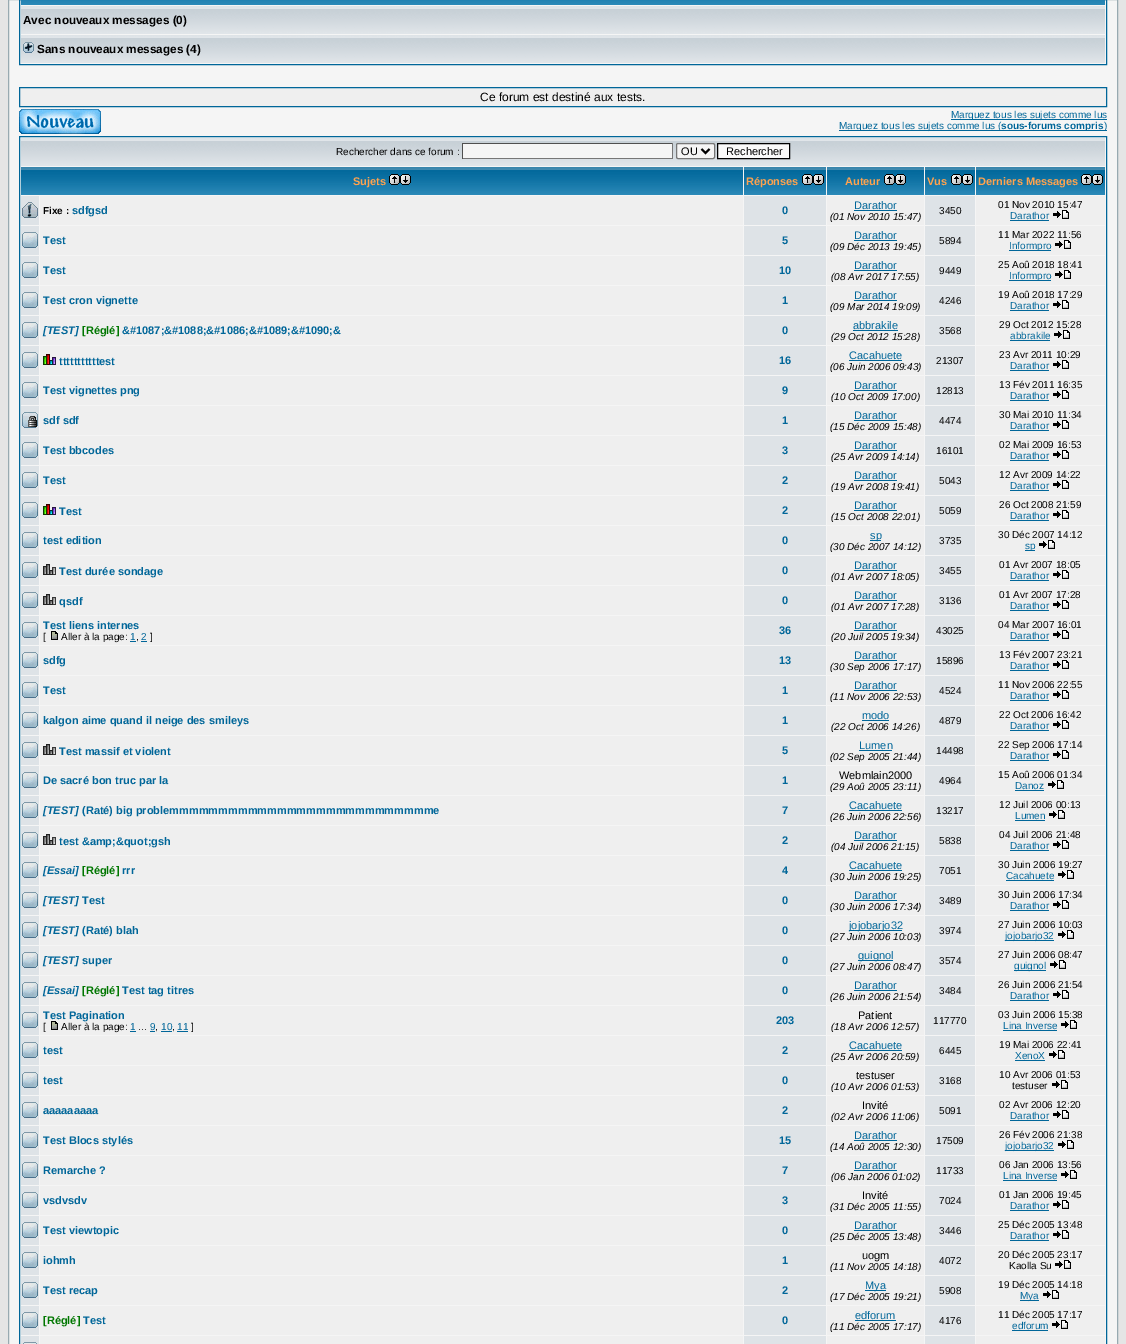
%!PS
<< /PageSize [1126 1344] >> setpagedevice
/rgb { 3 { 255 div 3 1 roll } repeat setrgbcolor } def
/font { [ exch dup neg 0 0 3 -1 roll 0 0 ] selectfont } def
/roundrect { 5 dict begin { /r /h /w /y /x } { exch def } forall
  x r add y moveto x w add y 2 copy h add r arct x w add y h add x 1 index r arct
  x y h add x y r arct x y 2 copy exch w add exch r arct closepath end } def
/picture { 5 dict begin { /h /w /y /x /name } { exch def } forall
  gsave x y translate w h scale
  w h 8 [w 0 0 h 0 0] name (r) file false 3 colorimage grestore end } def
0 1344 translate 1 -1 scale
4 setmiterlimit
229 229 229 rgb
0 0 1126 1344 rectfill
245 245 245 rgb
8.5 -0.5 moveto 1117.5 -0.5 lineto 1117.5 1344.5 lineto 8.5 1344.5 lineto closepath gsave fill grestore
152 170 177 rgb
stroke
0 102 153 rgb
19.5 -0.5 1087 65 rectstroke
(img/1.rgb) 21 0 1084 5 picture
(img/2.rgb) 21 6 1084 28 picture
(img/2.rgb) 21 35 1084 28 picture
(img/3.rgb) 23 42 11 11 picture
239 239 239 rgb
19.5 87.5 moveto 1106.5 87.5 lineto 1106.5 106.5 lineto 19.5 106.5 lineto closepath gsave fill grestore
0 102 153 rgb
stroke
(img/4.rgb) 19 109 82 25 picture
[
  [951 119 156 1 0 102 153]
  [839 130 162 1 0 102 153]
  [1001 130 106 1 0 102 153]
] { aload pop rgb rectfill } forall
19.5 136.5 1087 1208 rectstroke
(img/2.rgb) 21 138 1084 28 picture
[
  [463 144 209 14 245 245 245]
  [462 143 211 1 79 79 79]
  [672 143 1 16 118 118 118]
  [462 158 211 1 118 118 118]
  [462 143 1 16 79 79 79]
] { aload pop rgb rectfill } forall
245 245 245 rgb
676.5 143.5 38 15 1.5 roundrect gsave fill grestore
118 118 118 rgb
stroke
0 0 0 rgb
2 setlinewidth
701.5 149 moveto 705.5 153 lineto 709.5 149 lineto stroke
250 250 250 rgb
717.5 143.5 moveto 789.5 143.5 lineto 789.5 158.5 lineto 717.5 158.5 lineto closepath gsave fill grestore
0 0 0 rgb
1 setlinewidth
stroke
(img/5.rgb) 21 167 722 28 picture
(img/6.rgb) 389 174 11 11 picture
(img/7.rgb) 400 174 11 11 picture
(img/8.rgb) 744 167 82 28 picture
(img/6.rgb) 802 174 11 11 picture
(img/7.rgb) 813 174 11 11 picture
(img/9.rgb) 827 167 97 28 picture
(img/6.rgb) 884 174 11 11 picture
(img/7.rgb) 895 174 11 11 picture
(img/10.rgb) 925 167 50 28 picture
(img/6.rgb) 951 174 11 11 picture
(img/7.rgb) 962 174 11 11 picture
(img/11.rgb) 976 167 129 28 picture
(img/6.rgb) 1081 174 11 11 picture
(img/7.rgb) 1092 174 11 11 picture
222 227 231 rgb
21 196 18 29 rectfill
(img/12.rgb) 22 202 16 16 picture
[
  [40 196 703 29 239 239 239]
  [744 196 82 29 222 227 231]
  [827 196 97 29 239 239 239]
  [854 210 43 1 0 102 153]
  [925 196 50 29 222 227 231]
  [976 196 129 29 239 239 239]
  [1010 220 39 1 0 102 153]
] { aload pop rgb rectfill } forall
(img/13.rgb) 1053 210 16 9 picture
222 227 231 rgb
21 226 18 29 rectfill
(img/14.rgb) 22 232 16 16 picture
[
  [40 226 703 29 239 239 239]
  [744 226 82 29 222 227 231]
  [827 226 97 29 239 239 239]
  [854 240 43 1 0 102 153]
  [925 226 50 29 222 227 231]
  [976 226 129 29 239 239 239]
  [1009 250 42 1 0 102 153]
] { aload pop rgb rectfill } forall
(img/13.rgb) 1055 240 16 9 picture
222 227 231 rgb
21 256 18 29 rectfill
(img/14.rgb) 22 262 16 16 picture
[
  [40 256 703 29 239 239 239]
  [744 256 82 29 222 227 231]
  [827 256 97 29 239 239 239]
  [854 270 43 1 0 102 153]
  [925 256 50 29 222 227 231]
  [976 256 129 29 239 239 239]
  [1009 280 42 1 0 102 153]
] { aload pop rgb rectfill } forall
(img/13.rgb) 1055 270 16 9 picture
222 227 231 rgb
21 286 18 29 rectfill
(img/14.rgb) 22 292 16 16 picture
[
  [40 286 703 29 239 239 239]
  [744 286 82 29 222 227 231]
  [827 286 97 29 239 239 239]
  [854 300 43 1 0 102 153]
  [925 286 50 29 222 227 231]
  [976 286 129 29 239 239 239]
  [1010 310 39 1 0 102 153]
] { aload pop rgb rectfill } forall
(img/13.rgb) 1053 300 16 9 picture
222 227 231 rgb
21 316 18 29 rectfill
(img/14.rgb) 22 322 16 16 picture
[
  [40 316 703 29 239 239 239]
  [744 316 82 29 222 227 231]
  [827 316 97 29 239 239 239]
  [853 330 45 1 0 102 153]
  [925 316 50 29 222 227 231]
  [976 316 129 29 239 239 239]
  [1010 340 40 1 0 102 153]
] { aload pop rgb rectfill } forall
(img/13.rgb) 1054 330 16 9 picture
222 227 231 rgb
21 346 18 29 rectfill
(img/14.rgb) 22 352 16 16 picture
239 239 239 rgb
40 346 703 29 rectfill
(img/15.rgb) 43 354 13 11 picture
[
  [744 346 82 29 222 227 231]
  [827 346 97 29 239 239 239]
  [849 360 53 1 0 102 153]
  [925 346 50 29 222 227 231]
  [976 346 129 29 239 239 239]
  [1010 370 39 1 0 102 153]
] { aload pop rgb rectfill } forall
(img/13.rgb) 1053 360 16 9 picture
222 227 231 rgb
21 376 18 29 rectfill
(img/14.rgb) 22 382 16 16 picture
[
  [40 376 703 29 239 239 239]
  [744 376 82 29 222 227 231]
  [827 376 97 29 239 239 239]
  [854 390 43 1 0 102 153]
  [925 376 50 29 222 227 231]
  [976 376 129 29 239 239 239]
  [1010 400 39 1 0 102 153]
] { aload pop rgb rectfill } forall
(img/13.rgb) 1053 390 16 9 picture
222 227 231 rgb
21 406 18 29 rectfill
(img/16.rgb) 22 412 16 16 picture
[
  [40 406 703 29 239 239 239]
  [744 406 82 29 222 227 231]
  [827 406 97 29 239 239 239]
  [854 420 43 1 0 102 153]
  [925 406 50 29 222 227 231]
  [976 406 129 29 239 239 239]
  [1010 430 39 1 0 102 153]
] { aload pop rgb rectfill } forall
(img/13.rgb) 1053 420 16 9 picture
222 227 231 rgb
21 436 18 29 rectfill
(img/14.rgb) 22 442 16 16 picture
[
  [40 436 703 29 239 239 239]
  [744 436 82 29 222 227 231]
  [827 436 97 29 239 239 239]
  [854 450 43 1 0 102 153]
  [925 436 50 29 222 227 231]
  [976 436 129 29 239 239 239]
  [1010 460 39 1 0 102 153]
] { aload pop rgb rectfill } forall
(img/13.rgb) 1053 450 16 9 picture
222 227 231 rgb
21 466 18 29 rectfill
(img/14.rgb) 22 472 16 16 picture
[
  [40 466 703 29 239 239 239]
  [744 466 82 29 222 227 231]
  [827 466 97 29 239 239 239]
  [854 480 43 1 0 102 153]
  [925 466 50 29 222 227 231]
  [976 466 129 29 239 239 239]
  [1010 490 39 1 0 102 153]
] { aload pop rgb rectfill } forall
(img/13.rgb) 1053 480 16 9 picture
222 227 231 rgb
21 496 18 29 rectfill
(img/14.rgb) 22 502 16 16 picture
239 239 239 rgb
40 496 703 29 rectfill
(img/15.rgb) 43 504 13 11 picture
[
  [744 496 82 29 222 227 231]
  [827 496 97 29 239 239 239]
  [854 510 43 1 0 102 153]
  [925 496 50 29 222 227 231]
  [976 496 129 29 239 239 239]
  [1010 520 39 1 0 102 153]
] { aload pop rgb rectfill } forall
(img/13.rgb) 1053 510 16 9 picture
222 227 231 rgb
21 526 18 29 rectfill
(img/14.rgb) 22 532 16 16 picture
[
  [40 526 703 29 239 239 239]
  [744 526 82 29 222 227 231]
  [827 526 97 29 239 239 239]
  [870 540 11 1 0 102 153]
  [925 526 50 29 222 227 231]
  [976 526 129 29 239 239 239]
  [1025 550 10 1 0 102 153]
] { aload pop rgb rectfill } forall
(img/13.rgb) 1039 540 16 9 picture
222 227 231 rgb
21 556 18 29 rectfill
(img/14.rgb) 22 562 16 16 picture
239 239 239 rgb
40 556 703 29 rectfill
(img/17.rgb) 43 564 13 11 picture
[
  [744 556 82 29 222 227 231]
  [827 556 97 29 239 239 239]
  [854 570 43 1 0 102 153]
  [925 556 50 29 222 227 231]
  [976 556 129 29 239 239 239]
  [1010 580 39 1 0 102 153]
] { aload pop rgb rectfill } forall
(img/13.rgb) 1053 570 16 9 picture
222 227 231 rgb
21 586 18 29 rectfill
(img/14.rgb) 22 592 16 16 picture
239 239 239 rgb
40 586 703 29 rectfill
(img/17.rgb) 43 594 13 11 picture
[
  [744 586 82 29 222 227 231]
  [827 586 97 29 239 239 239]
  [854 600 43 1 0 102 153]
  [925 586 50 29 222 227 231]
  [976 586 129 29 239 239 239]
  [1010 610 39 1 0 102 153]
] { aload pop rgb rectfill } forall
(img/13.rgb) 1053 600 16 9 picture
222 227 231 rgb
21 616 18 29 rectfill
(img/14.rgb) 22 622 16 16 picture
239 239 239 rgb
40 616 703 29 rectfill
(img/18.rgb) 51 631 7 9 picture
[
  [130 641 6 1 0 102 153]
  [141 641 6 1 0 102 153]
  [744 616 82 29 222 227 231]
  [827 616 97 29 239 239 239]
  [854 630 43 1 0 102 153]
  [925 616 50 29 222 227 231]
  [976 616 129 29 239 239 239]
  [1010 640 39 1 0 102 153]
] { aload pop rgb rectfill } forall
(img/13.rgb) 1053 630 16 9 picture
222 227 231 rgb
21 646 18 29 rectfill
(img/14.rgb) 22 652 16 16 picture
[
  [40 646 703 29 239 239 239]
  [744 646 82 29 222 227 231]
  [827 646 97 29 239 239 239]
  [854 660 43 1 0 102 153]
  [925 646 50 29 222 227 231]
  [976 646 129 29 239 239 239]
  [1010 670 39 1 0 102 153]
] { aload pop rgb rectfill } forall
(img/13.rgb) 1053 660 16 9 picture
222 227 231 rgb
21 676 18 29 rectfill
(img/14.rgb) 22 682 16 16 picture
[
  [40 676 703 29 239 239 239]
  [744 676 82 29 222 227 231]
  [827 676 97 29 239 239 239]
  [854 690 43 1 0 102 153]
  [925 676 50 29 222 227 231]
  [976 676 129 29 239 239 239]
  [1010 700 39 1 0 102 153]
] { aload pop rgb rectfill } forall
(img/13.rgb) 1053 690 16 9 picture
222 227 231 rgb
21 706 18 29 rectfill
(img/14.rgb) 22 712 16 16 picture
[
  [40 706 703 29 239 239 239]
  [744 706 82 29 222 227 231]
  [827 706 97 29 239 239 239]
  [862 720 27 1 0 102 153]
  [925 706 50 29 222 227 231]
  [976 706 129 29 239 239 239]
  [1010 730 39 1 0 102 153]
] { aload pop rgb rectfill } forall
(img/13.rgb) 1053 720 16 9 picture
222 227 231 rgb
21 736 18 29 rectfill
(img/14.rgb) 22 742 16 16 picture
239 239 239 rgb
40 736 703 29 rectfill
(img/17.rgb) 43 744 13 11 picture
[
  [744 736 82 29 222 227 231]
  [827 736 97 29 239 239 239]
  [859 750 33 1 0 102 153]
  [925 736 50 29 222 227 231]
  [976 736 129 29 239 239 239]
  [1010 760 39 1 0 102 153]
  [21 766 18 29 222 227 231]
] { aload pop rgb rectfill } forall
(img/14.rgb) 22 772 16 16 picture
[
  [40 766 703 29 239 239 239]
  [744 766 82 29 222 227 231]
  [827 766 97 29 239 239 239]
  [925 766 50 29 222 227 231]
  [976 766 129 29 239 239 239]
  [1015 790 29 1 0 102 153]
] { aload pop rgb rectfill } forall
(img/13.rgb) 1048 780 16 9 picture
222 227 231 rgb
21 796 18 29 rectfill
(img/14.rgb) 22 802 16 16 picture
[
  [40 796 703 29 239 239 239]
  [744 796 82 29 222 227 231]
  [827 796 97 29 239 239 239]
  [849 810 53 1 0 102 153]
  [925 796 50 29 222 227 231]
  [976 796 129 29 239 239 239]
  [1015 820 30 1 0 102 153]
] { aload pop rgb rectfill } forall
(img/13.rgb) 1049 810 16 9 picture
222 227 231 rgb
21 826 18 29 rectfill
(img/14.rgb) 22 832 16 16 picture
239 239 239 rgb
40 826 703 29 rectfill
(img/17.rgb) 43 834 13 11 picture
[
  [744 826 82 29 222 227 231]
  [827 826 97 29 239 239 239]
  [854 840 43 1 0 102 153]
  [925 826 50 29 222 227 231]
  [976 826 129 29 239 239 239]
  [1010 850 39 1 0 102 153]
] { aload pop rgb rectfill } forall
(img/13.rgb) 1053 840 16 9 picture
222 227 231 rgb
21 856 18 29 rectfill
(img/14.rgb) 22 862 16 16 picture
[
  [40 856 703 29 239 239 239]
  [744 856 82 29 222 227 231]
  [827 856 97 29 239 239 239]
  [849 870 53 1 0 102 153]
  [925 856 50 29 222 227 231]
  [976 856 129 29 239 239 239]
  [1006 880 48 1 0 102 153]
] { aload pop rgb rectfill } forall
(img/13.rgb) 1058 870 16 9 picture
222 227 231 rgb
21 886 18 29 rectfill
(img/14.rgb) 22 892 16 16 picture
[
  [40 886 703 29 239 239 239]
  [744 886 82 29 222 227 231]
  [827 886 97 29 239 239 239]
  [854 900 43 1 0 102 153]
  [925 886 50 29 222 227 231]
  [976 886 129 29 239 239 239]
  [1010 910 39 1 0 102 153]
] { aload pop rgb rectfill } forall
(img/13.rgb) 1053 900 16 9 picture
222 227 231 rgb
21 916 18 29 rectfill
(img/14.rgb) 22 922 16 16 picture
[
  [40 916 703 29 239 239 239]
  [744 916 82 29 222 227 231]
  [827 916 97 29 239 239 239]
  [849 930 53 1 0 102 153]
  [925 916 50 29 222 227 231]
  [976 916 129 29 239 239 239]
  [1005 940 49 1 0 102 153]
] { aload pop rgb rectfill } forall
(img/13.rgb) 1058 930 16 9 picture
222 227 231 rgb
21 946 18 29 rectfill
(img/14.rgb) 22 952 16 16 picture
[
  [40 946 703 29 239 239 239]
  [744 946 82 29 222 227 231]
  [827 946 97 29 239 239 239]
  [858 960 35 1 0 102 153]
  [925 946 50 29 222 227 231]
  [976 946 129 29 239 239 239]
  [1014 970 32 1 0 102 153]
] { aload pop rgb rectfill } forall
(img/13.rgb) 1050 960 16 9 picture
222 227 231 rgb
21 976 18 29 rectfill
(img/14.rgb) 22 982 16 16 picture
[
  [40 976 703 29 239 239 239]
  [744 976 82 29 222 227 231]
  [827 976 97 29 239 239 239]
  [854 990 43 1 0 102 153]
  [925 976 50 29 222 227 231]
  [976 976 129 29 239 239 239]
  [1010 1000 39 1 0 102 153]
] { aload pop rgb rectfill } forall
(img/13.rgb) 1053 990 16 9 picture
222 227 231 rgb
21 1006 18 29 rectfill
(img/14.rgb) 22 1012 16 16 picture
[
  [40 1006 703 29 239 239 239]
  [130 1031 6 1 0 102 153]
  [150 1031 5 1 0 102 153]
  [161 1031 11 1 0 102 153]
  [177 1031 11 1 0 102 153]
  [744 1006 82 29 222 227 231]
  [827 1006 97 29 239 239 239]
  [925 1006 50 29 222 227 231]
  [976 1006 129 29 239 239 239]
  [1003 1030 54 1 0 102 153]
] { aload pop rgb rectfill } forall
(img/13.rgb) 1061 1020 16 9 picture
222 227 231 rgb
21 1036 18 29 rectfill
(img/14.rgb) 22 1042 16 16 picture
[
  [40 1036 703 29 239 239 239]
  [744 1036 82 29 222 227 231]
  [827 1036 97 29 239 239 239]
  [849 1050 53 1 0 102 153]
  [925 1036 50 29 222 227 231]
  [976 1036 129 29 239 239 239]
  [1015 1060 30 1 0 102 153]
] { aload pop rgb rectfill } forall
(img/13.rgb) 1049 1050 16 9 picture
222 227 231 rgb
21 1066 18 29 rectfill
(img/14.rgb) 22 1072 16 16 picture
[
  [40 1066 703 29 239 239 239]
  [744 1066 82 29 222 227 231]
  [827 1066 97 29 239 239 239]
  [925 1066 50 29 222 227 231]
  [976 1066 129 29 239 239 239]
] { aload pop rgb rectfill } forall
(img/13.rgb) 1052 1080 16 9 picture
222 227 231 rgb
21 1096 18 29 rectfill
(img/14.rgb) 22 1102 16 16 picture
[
  [40 1096 703 29 239 239 239]
  [744 1096 82 29 222 227 231]
  [827 1096 97 29 239 239 239]
  [925 1096 50 29 222 227 231]
  [976 1096 129 29 239 239 239]
  [1010 1120 39 1 0 102 153]
] { aload pop rgb rectfill } forall
(img/13.rgb) 1053 1110 16 9 picture
222 227 231 rgb
21 1126 18 29 rectfill
(img/14.rgb) 22 1132 16 16 picture
[
  [40 1126 703 29 239 239 239]
  [744 1126 82 29 222 227 231]
  [827 1126 97 29 239 239 239]
  [854 1140 43 1 0 102 153]
  [925 1126 50 29 222 227 231]
  [976 1126 129 29 239 239 239]
  [1005 1150 49 1 0 102 153]
] { aload pop rgb rectfill } forall
(img/13.rgb) 1058 1140 16 9 picture
222 227 231 rgb
21 1156 18 29 rectfill
(img/14.rgb) 22 1162 16 16 picture
[
  [40 1156 703 29 239 239 239]
  [744 1156 82 29 222 227 231]
  [827 1156 97 29 239 239 239]
  [854 1170 43 1 0 102 153]
  [925 1156 50 29 222 227 231]
  [976 1156 129 29 239 239 239]
  [1003 1180 54 1 0 102 153]
] { aload pop rgb rectfill } forall
(img/13.rgb) 1061 1170 16 9 picture
222 227 231 rgb
21 1186 18 29 rectfill
(img/14.rgb) 22 1192 16 16 picture
[
  [40 1186 703 29 239 239 239]
  [744 1186 82 29 222 227 231]
  [827 1186 97 29 239 239 239]
  [925 1186 50 29 222 227 231]
  [976 1186 129 29 239 239 239]
  [1010 1210 39 1 0 102 153]
] { aload pop rgb rectfill } forall
(img/13.rgb) 1053 1200 16 9 picture
222 227 231 rgb
21 1216 18 29 rectfill
(img/14.rgb) 22 1222 16 16 picture
[
  [40 1216 703 29 239 239 239]
  [744 1216 82 29 222 227 231]
  [827 1216 97 29 239 239 239]
  [854 1230 43 1 0 102 153]
  [925 1216 50 29 222 227 231]
  [976 1216 129 29 239 239 239]
  [1010 1240 39 1 0 102 153]
] { aload pop rgb rectfill } forall
(img/13.rgb) 1053 1230 16 9 picture
222 227 231 rgb
21 1246 18 29 rectfill
(img/14.rgb) 22 1252 16 16 picture
[
  [40 1246 703 29 239 239 239]
  [744 1246 82 29 222 227 231]
  [827 1246 97 29 239 239 239]
  [925 1246 50 29 222 227 231]
  [976 1246 129 29 239 239 239]
] { aload pop rgb rectfill } forall
(img/13.rgb) 1055 1260 16 9 picture
222 227 231 rgb
21 1276 18 29 rectfill
(img/14.rgb) 22 1282 16 16 picture
[
  [40 1276 703 29 239 239 239]
  [744 1276 82 29 222 227 231]
  [827 1276 97 29 239 239 239]
  [865 1290 21 1 0 102 153]
  [925 1276 50 29 222 227 231]
  [976 1276 129 29 239 239 239]
  [1020 1300 19 1 0 102 153]
] { aload pop rgb rectfill } forall
(img/13.rgb) 1043 1290 16 9 picture
222 227 231 rgb
21 1306 18 29 rectfill
(img/14.rgb) 22 1312 16 16 picture
[
  [40 1306 703 29 239 239 239]
  [744 1306 82 29 222 227 231]
  [827 1306 97 29 239 239 239]
  [855 1320 41 1 0 102 153]
  [925 1306 50 29 222 227 231]
  [976 1306 129 29 239 239 239]
  [1012 1330 36 1 0 102 153]
] { aload pop rgb rectfill } forall
(img/13.rgb) 1052 1320 16 9 picture
222 227 231 rgb
21 1336 19 8 rectfill
245 245 245 rgb
39 1336 1 8 rectfill
(img/19.rgb) 23 1342 14 2 picture
[
  [40 1336 704 8 239 239 239]
  [743 1336 1 8 245 245 245]
  [744 1336 83 8 222 227 231]
  [826 1336 1 8 245 245 245]
  [827 1336 98 8 239 239 239]
  [924 1336 1 8 245 245 245]
  [925 1336 51 8 222 227 231]
  [975 1336 1 8 245 245 245]
  [976 1336 130 8 239 239 239]
  [1105 1336 1 8 245 245 245]
] { aload pop rgb rectfill } forall
/LiberationSans-Bold 11.75 font
0 0 0 rgb
23 24 moveto (Avec nouveaux messages \(0\)) show
37 53 moveto (Sans nouveaux messages \(4\)) show
/LiberationSans-Regular 12 font
480 101 moveto (Ce forum est destiné aux tests.) show
/LiberationSans-Regular 10 font
0 102 153 rgb
951 118 moveto (Marquez tous les sujets comme lus) show
839 129 moveto (Marquez tous les sujets comme lus \() show
/LiberationSans-Bold 10 font
1001 129 moveto (sous-forums compris) show
/LiberationSans-Regular 10 font
1104 129 moveto (\)) show
0 0 0 rgb
336 155 moveto (Rechercher dans ce forum :) show
/LiberationSans-Regular 11 font
681 155 moveto (OU) show
726 155 moveto (Rechercher) show
/LiberationSans-Bold 11 font
255 163 79 rgb
[
  [(Sujets) 353 185]
  [(Réponses) 746 185]
  [(Auteur) 845 185]
  [(Vus) 927 185]
  [(Derniers Messages) 978 185]
] { aload pop moveto show } forall
/LiberationSans-Bold 10 font
0 0 0 rgb
43 214 moveto (Fixe :) show
/LiberationSans-Bold 11 font
0 102 153 rgb
72 214 moveto (sdfgsd) show
782 214 moveto (0) show
/LiberationSans-Regular 11 font
854 209 moveto (Darathor) show
/LiberationSans-Italic 10 font
0 0 0 rgb
830 220 moveto (\(01 Nov 2010 15:47\)) show
/LiberationSans-Regular 10 font
939 214 moveto (3450) show
998 208 moveto (01 Nov 2010 15:47) show
0 102 153 rgb
1010 219 moveto (Darathor) show
/LiberationSans-Bold 11 font
43 244 moveto (Test) show
782 244 moveto (5) show
/LiberationSans-Regular 11 font
854 239 moveto (Darathor) show
/LiberationSans-Italic 10 font
0 0 0 rgb
830 250 moveto (\(09 Déc 2013 19:45\)) show
/LiberationSans-Regular 10 font
939 244 moveto (5894) show
998 238 moveto (11 Mar 2022 11:56) show
0 102 153 rgb
1009 249 moveto (Informpro) show
/LiberationSans-Bold 11 font
43 274 moveto (Test) show
779 274 moveto (10) show
/LiberationSans-Regular 11 font
854 269 moveto (Darathor) show
/LiberationSans-Italic 10 font
0 0 0 rgb
831 280 moveto (\(08 Avr 2017 17:55\)) show
/LiberationSans-Regular 10 font
939 274 moveto (9449) show
998 268 moveto (25 Aoû 2018 18:41) show
0 102 153 rgb
1009 279 moveto (Informpro) show
/LiberationSans-Bold 11 font
43 304 moveto (Test cron vignette) show
782 304 moveto (1) show
/LiberationSans-Regular 11 font
854 299 moveto (Darathor) show
/LiberationSans-Italic 10 font
0 0 0 rgb
830 310 moveto (\(09 Mar 2014 19:09\)) show
/LiberationSans-Regular 10 font
939 304 moveto (4246) show
998 298 moveto (19 Aoû 2018 17:29) show
0 102 153 rgb
1010 309 moveto (Darathor) show
/LiberationSans-BoldItalic 11 font
43 334 moveto ([TEST]) show
/LiberationSans-Bold 11 font
0 119 0 rgb
82 334 moveto ([Réglé]) show
0 102 153 rgb
122 334 moveto (&#1087;&#1088;&#1086;&#1089;&#1090;&) show
782 334 moveto (0) show
/LiberationSans-Regular 11 font
853 329 moveto (abbrakile) show
/LiberationSans-Italic 10 font
0 0 0 rgb
831 340 moveto (\(29 Oct 2012 15:28\)) show
/LiberationSans-Regular 10 font
939 334 moveto (3568) show
999 328 moveto (29 Oct 2012 15:28) show
0 102 153 rgb
1010 339 moveto (abbrakile) show
/LiberationSans-Bold 11 font
59 365 moveto (tttttttttttest) show
779 364 moveto (16) show
/LiberationSans-Regular 11 font
849 359 moveto (Cacahuete) show
/LiberationSans-Italic 10 font
0 0 0 rgb
830 370 moveto (\(06 Juin 2006 09:43\)) show
/LiberationSans-Regular 10 font
936 364 moveto (21307) show
999 358 moveto (23 Avr 2011 10:29) show
0 102 153 rgb
1010 369 moveto (Darathor) show
/LiberationSans-Bold 11 font
43 394 moveto (Test vignettes png) show
782 394 moveto (9) show
/LiberationSans-Regular 11 font
854 389 moveto (Darathor) show
/LiberationSans-Italic 10 font
0 0 0 rgb
831 400 moveto (\(10 Oct 2009 17:00\)) show
/LiberationSans-Regular 10 font
936 394 moveto (12813) show
999 388 moveto (13 Fév 2011 16:35) show
0 102 153 rgb
1010 399 moveto (Darathor) show
/LiberationSans-Bold 11 font
43 424 moveto (sdf sdf) show
782 424 moveto (1) show
/LiberationSans-Regular 11 font
854 419 moveto (Darathor) show
/LiberationSans-Italic 10 font
0 0 0 rgb
830 430 moveto (\(15 Déc 2009 15:48\)) show
/LiberationSans-Regular 10 font
939 424 moveto (4474) show
999 418 moveto (30 Mai 2010 11:34) show
0 102 153 rgb
1010 429 moveto (Darathor) show
/LiberationSans-Bold 11 font
43 454 moveto (Test bbcodes) show
782 454 moveto (3) show
/LiberationSans-Regular 11 font
854 449 moveto (Darathor) show
/LiberationSans-Italic 10 font
0 0 0 rgb
831 460 moveto (\(25 Avr 2009 14:14\)) show
/LiberationSans-Regular 10 font
936 454 moveto (16101) show
999 448 moveto (02 Mai 2009 16:53) show
0 102 153 rgb
1010 459 moveto (Darathor) show
/LiberationSans-Bold 11 font
43 484 moveto (Test) show
782 484 moveto (2) show
/LiberationSans-Regular 11 font
854 479 moveto (Darathor) show
/LiberationSans-Italic 10 font
0 0 0 rgb
831 490 moveto (\(19 Avr 2008 19:41\)) show
/LiberationSans-Regular 10 font
939 484 moveto (5043) show
999 478 moveto (12 Avr 2009 14:22) show
0 102 153 rgb
1010 489 moveto (Darathor) show
/LiberationSans-Bold 11 font
59 515 moveto (Test) show
782 514 moveto (2) show
/LiberationSans-Regular 11 font
854 509 moveto (Darathor) show
/LiberationSans-Italic 10 font
0 0 0 rgb
831 520 moveto (\(15 Oct 2008 22:01\)) show
/LiberationSans-Regular 10 font
939 514 moveto (5059) show
999 508 moveto (26 Oct 2008 21:59) show
0 102 153 rgb
1010 519 moveto (Darathor) show
/LiberationSans-Bold 11 font
43 544 moveto (test edition) show
782 544 moveto (0) show
/LiberationSans-Regular 11 font
870 539 moveto (sp) show
/LiberationSans-Italic 10 font
0 0 0 rgb
830 550 moveto (\(30 Déc 2007 14:12\)) show
/LiberationSans-Regular 10 font
939 544 moveto (3735) show
998 538 moveto (30 Déc 2007 14:12) show
0 102 153 rgb
1025 549 moveto (sp) show
/LiberationSans-Bold 11 font
59 575 moveto (Test durée sondage) show
782 574 moveto (0) show
/LiberationSans-Regular 11 font
854 569 moveto (Darathor) show
/LiberationSans-Italic 10 font
0 0 0 rgb
831 580 moveto (\(01 Avr 2007 18:05\)) show
/LiberationSans-Regular 10 font
939 574 moveto (3455) show
999 568 moveto (01 Avr 2007 18:05) show
0 102 153 rgb
1010 579 moveto (Darathor) show
/LiberationSans-Bold 11 font
59 605 moveto (qsdf) show
782 604 moveto (0) show
/LiberationSans-Regular 11 font
854 599 moveto (Darathor) show
/LiberationSans-Italic 10 font
0 0 0 rgb
831 610 moveto (\(01 Avr 2007 17:28\)) show
/LiberationSans-Regular 10 font
939 604 moveto (3136) show
999 598 moveto (01 Avr 2007 17:28) show
0 102 153 rgb
1010 609 moveto (Darathor) show
/LiberationSans-Bold 11 font
43 629 moveto (Test liens internes) show
/LiberationSans-Regular 10 font
0 0 0 rgb
43 640 moveto ([) show
61 640 moveto (Aller à la page:) show
0 102 153 rgb
130 640 moveto (1) show
0 0 0 rgb
136 640 moveto (,) show
0 102 153 rgb
141 640 moveto (2) show
0 0 0 rgb
150 640 moveto (]) show
/LiberationSans-Bold 11 font
0 102 153 rgb
779 634 moveto (36) show
/LiberationSans-Regular 11 font
854 629 moveto (Darathor) show
/LiberationSans-Italic 10 font
0 0 0 rgb
831 640 moveto (\(20 Juil 2005 19:34\)) show
/LiberationSans-Regular 10 font
936 634 moveto (43025) show
998 628 moveto (04 Mar 2007 16:01) show
0 102 153 rgb
1010 639 moveto (Darathor) show
/LiberationSans-Bold 11 font
43 664 moveto (sdfg) show
779 664 moveto (13) show
/LiberationSans-Regular 11 font
854 659 moveto (Darathor) show
/LiberationSans-Italic 10 font
0 0 0 rgb
830 670 moveto (\(30 Sep 2006 17:17\)) show
/LiberationSans-Regular 10 font
936 664 moveto (15896) show
999 658 moveto (13 Fév 2007 23:21) show
0 102 153 rgb
1010 669 moveto (Darathor) show
/LiberationSans-Bold 11 font
43 694 moveto (Test) show
782 694 moveto (1) show
/LiberationSans-Regular 11 font
854 689 moveto (Darathor) show
/LiberationSans-Italic 10 font
0 0 0 rgb
830 700 moveto (\(11 Nov 2006 22:53\)) show
/LiberationSans-Regular 10 font
939 694 moveto (4524) show
998 688 moveto (11 Nov 2006 22:55) show
0 102 153 rgb
1010 699 moveto (Darathor) show
/LiberationSans-Bold 11 font
43 724 moveto (kalgon aime quand il neige des smileys) show
782 724 moveto (1) show
/LiberationSans-Regular 11 font
862 719 moveto (modo) show
/LiberationSans-Italic 10 font
0 0 0 rgb
831 730 moveto (\(22 Oct 2006 14:26\)) show
/LiberationSans-Regular 10 font
939 724 moveto (4879) show
999 718 moveto (22 Oct 2006 16:42) show
0 102 153 rgb
1010 729 moveto (Darathor) show
/LiberationSans-Bold 11 font
59 755 moveto (Test massif et violent) show
782 754 moveto (5) show
/LiberationSans-Regular 11 font
859 749 moveto (Lumen) show
/LiberationSans-Italic 10 font
0 0 0 rgb
830 760 moveto (\(02 Sep 2005 21:44\)) show
/LiberationSans-Regular 10 font
936 754 moveto (14498) show
998 748 moveto (22 Sep 2006 17:14) show
0 102 153 rgb
1010 759 moveto (Darathor) show
(img/13.rgb) 1053 750 16 9 picture
/LiberationSans-Bold 11 font
43 784 moveto (De sacré bon truc par la) show
782 784 moveto (1) show
/LiberationSans-Regular 11 font
0 0 0 rgb
839 779 moveto (Webmlain2000) show
/LiberationSans-Italic 10 font
830 790 moveto (\(29 Aoû 2005 23:11\)) show
/LiberationSans-Regular 10 font
939 784 moveto (4964) show
998 778 moveto (15 Aoû 2006 01:34) show
0 102 153 rgb
1015 789 moveto (Danoz) show
/LiberationSans-BoldItalic 11 font
43 814 moveto ([TEST]) show
/LiberationSans-Bold 11 font
82 814 moveto (\(Raté\) big problemmmmmmmmmmmmmmmmmmmmmmmmmmme) show
782 814 moveto (7) show
/LiberationSans-Regular 11 font
849 809 moveto (Cacahuete) show
/LiberationSans-Italic 10 font
0 0 0 rgb
830 820 moveto (\(26 Juin 2006 22:56\)) show
/LiberationSans-Regular 10 font
936 814 moveto (13217) show
999 808 moveto (12 Juil 2006 00:13) show
0 102 153 rgb
1015 819 moveto (Lumen) show
/LiberationSans-Bold 11 font
59 845 moveto (test &amp;&quot;gsh) show
782 844 moveto (2) show
/LiberationSans-Regular 11 font
854 839 moveto (Darathor) show
/LiberationSans-Italic 10 font
0 0 0 rgb
831 850 moveto (\(04 Juil 2006 21:15\)) show
/LiberationSans-Regular 10 font
939 844 moveto (5838) show
999 838 moveto (04 Juil 2006 21:48) show
0 102 153 rgb
1010 849 moveto (Darathor) show
/LiberationSans-BoldItalic 11 font
43 874 moveto ([Essai]) show
/LiberationSans-Bold 11 font
0 119 0 rgb
82 874 moveto ([Réglé]) show
0 102 153 rgb
122 874 moveto (rrr) show
782 874 moveto (4) show
/LiberationSans-Regular 11 font
849 869 moveto (Cacahuete) show
/LiberationSans-Italic 10 font
0 0 0 rgb
830 880 moveto (\(30 Juin 2006 19:25\)) show
/LiberationSans-Regular 10 font
939 874 moveto (7051) show
998 868 moveto (30 Juin 2006 19:27) show
0 102 153 rgb
1006 879 moveto (Cacahuete) show
/LiberationSans-BoldItalic 11 font
43 904 moveto ([TEST]) show
/LiberationSans-Bold 11 font
82 904 moveto (Test) show
782 904 moveto (0) show
/LiberationSans-Regular 11 font
854 899 moveto (Darathor) show
/LiberationSans-Italic 10 font
0 0 0 rgb
830 910 moveto (\(30 Juin 2006 17:34\)) show
/LiberationSans-Regular 10 font
939 904 moveto (3489) show
998 898 moveto (30 Juin 2006 17:34) show
0 102 153 rgb
1010 909 moveto (Darathor) show
/LiberationSans-BoldItalic 11 font
43 934 moveto ([TEST]) show
/LiberationSans-Bold 11 font
82 934 moveto (\(Raté\) blah) show
782 934 moveto (0) show
/LiberationSans-Regular 11 font
849 929 moveto (jojobarjo32) show
/LiberationSans-Italic 10 font
0 0 0 rgb
830 940 moveto (\(27 Juin 2006 10:03\)) show
/LiberationSans-Regular 10 font
939 934 moveto (3974) show
998 928 moveto (27 Juin 2006 10:03) show
0 102 153 rgb
1005 939 moveto (jojobarjo32) show
/LiberationSans-BoldItalic 11 font
43 964 moveto ([TEST]) show
/LiberationSans-Bold 11 font
82 964 moveto (super) show
782 964 moveto (0) show
/LiberationSans-Regular 11 font
858 959 moveto (guignol) show
/LiberationSans-Italic 10 font
0 0 0 rgb
830 970 moveto (\(27 Juin 2006 08:47\)) show
/LiberationSans-Regular 10 font
939 964 moveto (3574) show
998 958 moveto (27 Juin 2006 08:47) show
0 102 153 rgb
1014 969 moveto (guignol) show
/LiberationSans-BoldItalic 11 font
43 994 moveto ([Essai]) show
/LiberationSans-Bold 11 font
0 119 0 rgb
82 994 moveto ([Réglé]) show
0 102 153 rgb
122 994 moveto (Test tag titres) show
782 994 moveto (0) show
/LiberationSans-Regular 11 font
854 989 moveto (Darathor) show
/LiberationSans-Italic 10 font
0 0 0 rgb
830 1000 moveto (\(26 Juin 2006 21:54\)) show
/LiberationSans-Regular 10 font
939 994 moveto (3484) show
998 988 moveto (26 Juin 2006 21:54) show
0 102 153 rgb
1010 999 moveto (Darathor) show
/LiberationSans-Bold 11 font
43 1019 moveto (Test Pagination) show
/LiberationSans-Regular 10 font
0 0 0 rgb
43 1030 moveto ([) show
(img/18.rgb) 51 1021 7 9 picture
61 1030 moveto (Aller à la page:) show
0 102 153 rgb
130 1030 moveto (1) show
0 0 0 rgb
138 1030 moveto (...) show
0 102 153 rgb
150 1030 moveto (9) show
0 0 0 rgb
155 1030 moveto (,) show
0 102 153 rgb
161 1030 moveto (10) show
0 0 0 rgb
172 1030 moveto (,) show
0 102 153 rgb
177 1030 moveto (11) show
0 0 0 rgb
191 1030 moveto (]) show
/LiberationSans-Bold 11 font
0 102 153 rgb
776 1024 moveto (203) show
/LiberationSans-Regular 11 font
0 0 0 rgb
858 1019 moveto (Patient) show
/LiberationSans-Italic 10 font
831 1030 moveto (\(18 Avr 2006 12:57\)) show
/LiberationSans-Regular 10 font
933 1024 moveto (117770) show
998 1018 moveto (03 Juin 2006 15:38) show
0 102 153 rgb
1003 1029 moveto (Lina Inverse) show
/LiberationSans-Bold 11 font
43 1054 moveto (test) show
782 1054 moveto (2) show
/LiberationSans-Regular 11 font
849 1049 moveto (Cacahuete) show
/LiberationSans-Italic 10 font
0 0 0 rgb
831 1060 moveto (\(25 Avr 2006 20:59\)) show
/LiberationSans-Regular 10 font
939 1054 moveto (6445) show
999 1048 moveto (19 Mai 2006 22:41) show
0 102 153 rgb
1015 1059 moveto (XenoX) show
/LiberationSans-Bold 11 font
43 1084 moveto (test) show
782 1084 moveto (0) show
/LiberationSans-Regular 11 font
0 0 0 rgb
856 1079 moveto (testuser) show
/LiberationSans-Italic 10 font
831 1090 moveto (\(10 Avr 2006 01:53\)) show
/LiberationSans-Regular 10 font
[
  [(3168) 939 1084]
  [(10 Avr 2006 01:53) 999 1078]
  [(testuser) 1012 1089]
] { aload pop moveto show } forall
/LiberationSans-Bold 11 font
0 102 153 rgb
43 1114 moveto (aaaaaaaaa) show
782 1114 moveto (2) show
/LiberationSans-Regular 11 font
0 0 0 rgb
862 1109 moveto (Invité) show
/LiberationSans-Italic 10 font
831 1120 moveto (\(02 Avr 2006 11:06\)) show
/LiberationSans-Regular 10 font
939 1114 moveto (5091) show
999 1108 moveto (02 Avr 2006 12:20) show
0 102 153 rgb
1010 1119 moveto (Darathor) show
/LiberationSans-Bold 11 font
43 1144 moveto (Test Blocs stylés) show
779 1144 moveto (15) show
/LiberationSans-Regular 11 font
854 1139 moveto (Darathor) show
/LiberationSans-Italic 10 font
0 0 0 rgb
830 1150 moveto (\(14 Aoû 2005 12:30\)) show
/LiberationSans-Regular 10 font
936 1144 moveto (17509) show
999 1138 moveto (26 Fév 2006 21:38) show
0 102 153 rgb
1005 1149 moveto (jojobarjo32) show
/LiberationSans-Bold 11 font
43 1174 moveto (Remarche ?) show
782 1174 moveto (7) show
/LiberationSans-Regular 11 font
854 1169 moveto (Darathor) show
/LiberationSans-Italic 10 font
0 0 0 rgb
831 1180 moveto (\(06 Jan 2006 01:02\)) show
/LiberationSans-Regular 10 font
936 1174 moveto (11733) show
999 1168 moveto (06 Jan 2006 13:56) show
0 102 153 rgb
1003 1179 moveto (Lina Inverse) show
/LiberationSans-Bold 11 font
43 1204 moveto (vsdvsdv) show
782 1204 moveto (3) show
/LiberationSans-Regular 11 font
0 0 0 rgb
862 1199 moveto (Invité) show
/LiberationSans-Italic 10 font
830 1210 moveto (\(31 Déc 2005 11:55\)) show
/LiberationSans-Regular 10 font
939 1204 moveto (7024) show
999 1198 moveto (01 Jan 2006 19:45) show
0 102 153 rgb
1010 1209 moveto (Darathor) show
/LiberationSans-Bold 11 font
43 1234 moveto (Test viewtopic) show
782 1234 moveto (0) show
/LiberationSans-Regular 11 font
854 1229 moveto (Darathor) show
/LiberationSans-Italic 10 font
0 0 0 rgb
830 1240 moveto (\(25 Déc 2005 13:48\)) show
/LiberationSans-Regular 10 font
939 1234 moveto (3446) show
998 1228 moveto (25 Déc 2005 13:48) show
0 102 153 rgb
1010 1239 moveto (Darathor) show
/LiberationSans-Bold 11 font
43 1264 moveto (iohmh) show
782 1264 moveto (1) show
/LiberationSans-Regular 11 font
0 0 0 rgb
862 1259 moveto (uogm) show
/LiberationSans-Italic 10 font
830 1270 moveto (\(11 Nov 2005 14:18\)) show
/LiberationSans-Regular 10 font
[
  [(4072) 939 1264]
  [(20 Déc 2005 23:17) 998 1258]
  [(Kaolla Su) 1009 1269]
] { aload pop moveto show } forall
/LiberationSans-Bold 11 font
0 102 153 rgb
43 1294 moveto (Test recap) show
782 1294 moveto (2) show
/LiberationSans-Regular 11 font
865 1289 moveto (Mya) show
/LiberationSans-Italic 10 font
0 0 0 rgb
830 1300 moveto (\(17 Déc 2005 19:21\)) show
/LiberationSans-Regular 10 font
939 1294 moveto (5908) show
998 1288 moveto (19 Déc 2005 14:18) show
0 102 153 rgb
1020 1299 moveto (Mya) show
/LiberationSans-Bold 11 font
0 119 0 rgb
43 1324 moveto ([Réglé]) show
0 102 153 rgb
83 1324 moveto (Test) show
782 1324 moveto (0) show
/LiberationSans-Regular 11 font
855 1319 moveto (edforum) show
/LiberationSans-Italic 10 font
0 0 0 rgb
830 1330 moveto (\(11 Déc 2005 17:17\)) show
/LiberationSans-Regular 10 font
939 1324 moveto (4176) show
998 1318 moveto (11 Déc 2005 17:17) show
0 102 153 rgb
1012 1329 moveto (edforum) show
showpage
